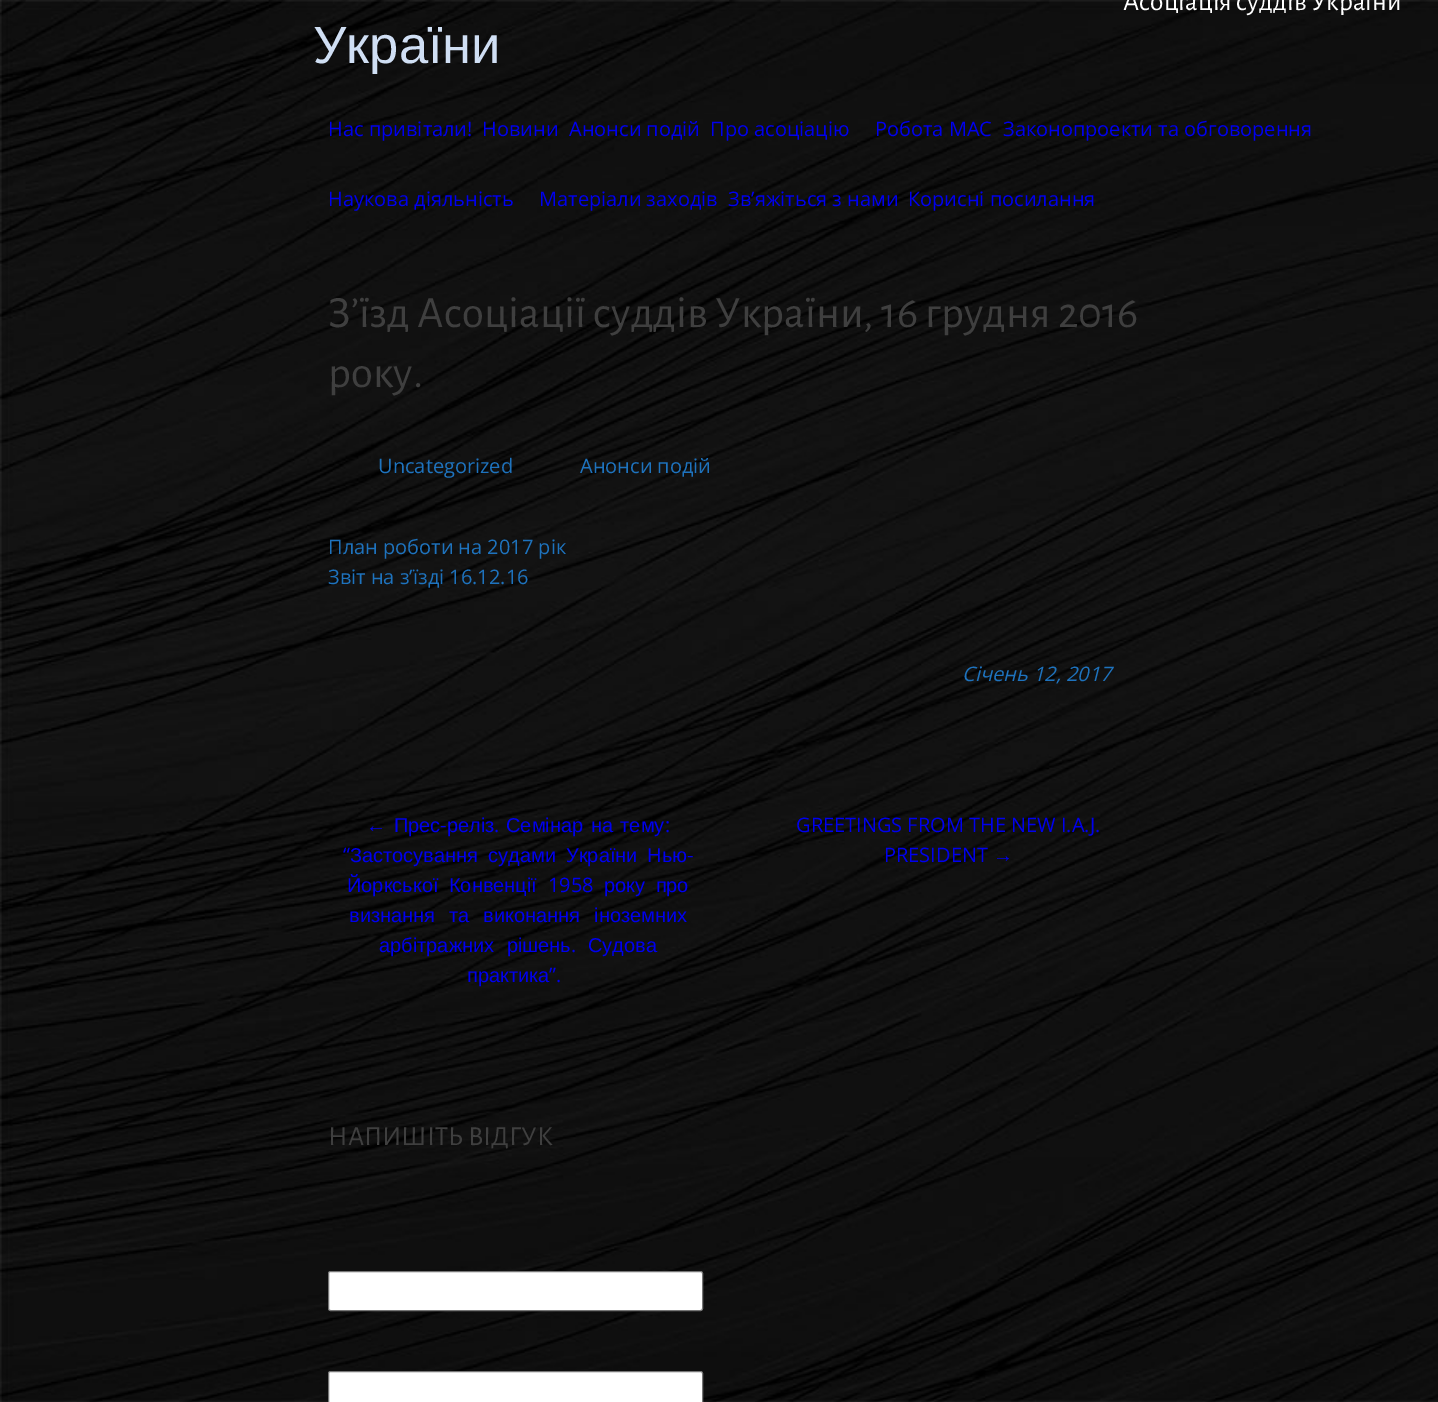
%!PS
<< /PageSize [1438 1402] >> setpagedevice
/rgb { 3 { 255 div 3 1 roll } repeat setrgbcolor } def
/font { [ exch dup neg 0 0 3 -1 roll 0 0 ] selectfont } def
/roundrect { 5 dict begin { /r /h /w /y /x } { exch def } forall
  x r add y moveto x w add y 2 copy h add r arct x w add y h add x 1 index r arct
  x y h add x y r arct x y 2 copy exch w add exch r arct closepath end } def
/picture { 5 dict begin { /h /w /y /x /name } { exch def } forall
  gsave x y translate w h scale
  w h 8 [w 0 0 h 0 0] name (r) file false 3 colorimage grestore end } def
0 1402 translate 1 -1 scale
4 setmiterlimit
255 255 255 rgb
0 0 1438 1402 rectfill
(img/1.rgb) 0 0 1438 1402 picture
328.5 1271.5 374 39 2 roundrect gsave fill grestore
118 118 118 rgb
stroke
255 255 255 rgb
328.5 1371.5 374 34 2 roundrect gsave fill grestore
118 118 118 rgb
stroke
/AlegreyaSans-Regular 27.5 font
255 255 255 rgb
1123 10 moveto (Асоціація суддів України) show
/LiberationSans-Regular 52.5 font
208 223 244 rgb
313 63 moveto (України) show
/OpenSans-Regular 20 font
0 0 238 rgb
[
  [(Нас привітали!) 328 136]
  [(Новини) 482 136]
  [(Анонси подій) 569 136]
  [(Про асоціацію) 710 136]
  [(Робота МАС) 875 136]
  [(Законопроекти та обговорення) 1003 136]
  [(Наукова діяльність) 328 206]
  [(Матеріали заходів) 539 206]
  [(Зв’яжіться з нами) 728 206]
  [(Корисні посилання) 908 206]
] { aload pop moveto show } forall
/AlegreyaSans-Regular 45 font
63 63 63 rgb
328 327 moveto (З’їзд Асоціації суддів України, 16 грудня 2016) show
328 387 moveto (року.) show
/OpenSans-Regular 20 font
30 115 190 rgb
[
  [(Uncategorized) 378 473]
  [(Анонси подій) 580 473]
  [(План роботи на 2017 рік) 328 554]
  [(Звіт на з’їзді 16.12.16) 328 584]
] { aload pop moveto show } forall
/OpenSans-Italic 20 font
962 681 moveto (Січень 12, 2017) show
/LiberationSans-Regular 20 font
0 0 238 rgb
366 832 moveto 2 0 32 (← Прес) widthshow
/OpenSans-Regular 20 font
440 832 moveto (-) show
/LiberationSans-Regular 20 font
447 832 moveto (реліз) show
506 832 moveto 2 0 32 (Семінар на тему) widthshow
/OpenSans-Regular 20 font
[
  [(:) 665 832]
  [(.) 494 832]
  [(“) 343 862]
] { aload pop moveto show } forall
/LiberationSans-Regular 20 font
350 862 moveto 4.5 0 32 (Застосування судами України Нью) widthshow
/OpenSans-Regular 20 font
687 862 moveto (-) show
/LiberationSans-Regular 20 font
347 892 moveto 5 0 32 (Йоркської Конвенції) widthshow
/OpenSans-Regular 20 font
548 892 moveto (1958) show
/LiberationSans-Regular 20 font
604 892 moveto 5 0 32 (року про) widthshow
349 922 moveto 8.5 0 32 (визнання та виконання іноземних) widthshow
379 952 moveto 7 0 32 (арбітражних рішень) widthshow
/OpenSans-Regular 20 font
571 952 moveto (.) show
/LiberationSans-Regular 20 font
588 952 moveto (Судова) show
467 982 moveto (практика) show
/OpenSans-Regular 20 font
[
  [(”.) 549 982]
  [(GREETINGS FROM THE NEW I.A.J.) 796 832]
  [(PRESIDENT) 884 862]
] { aload pop moveto show } forall
/LiberationSans-Regular 20 font
993 862 moveto (→) show
/AlegreyaSans-Regular 27.5 font
63 63 63 rgb
328 1145 moveto (НАПИШІТЬ ВІДГУК) show
showpage
